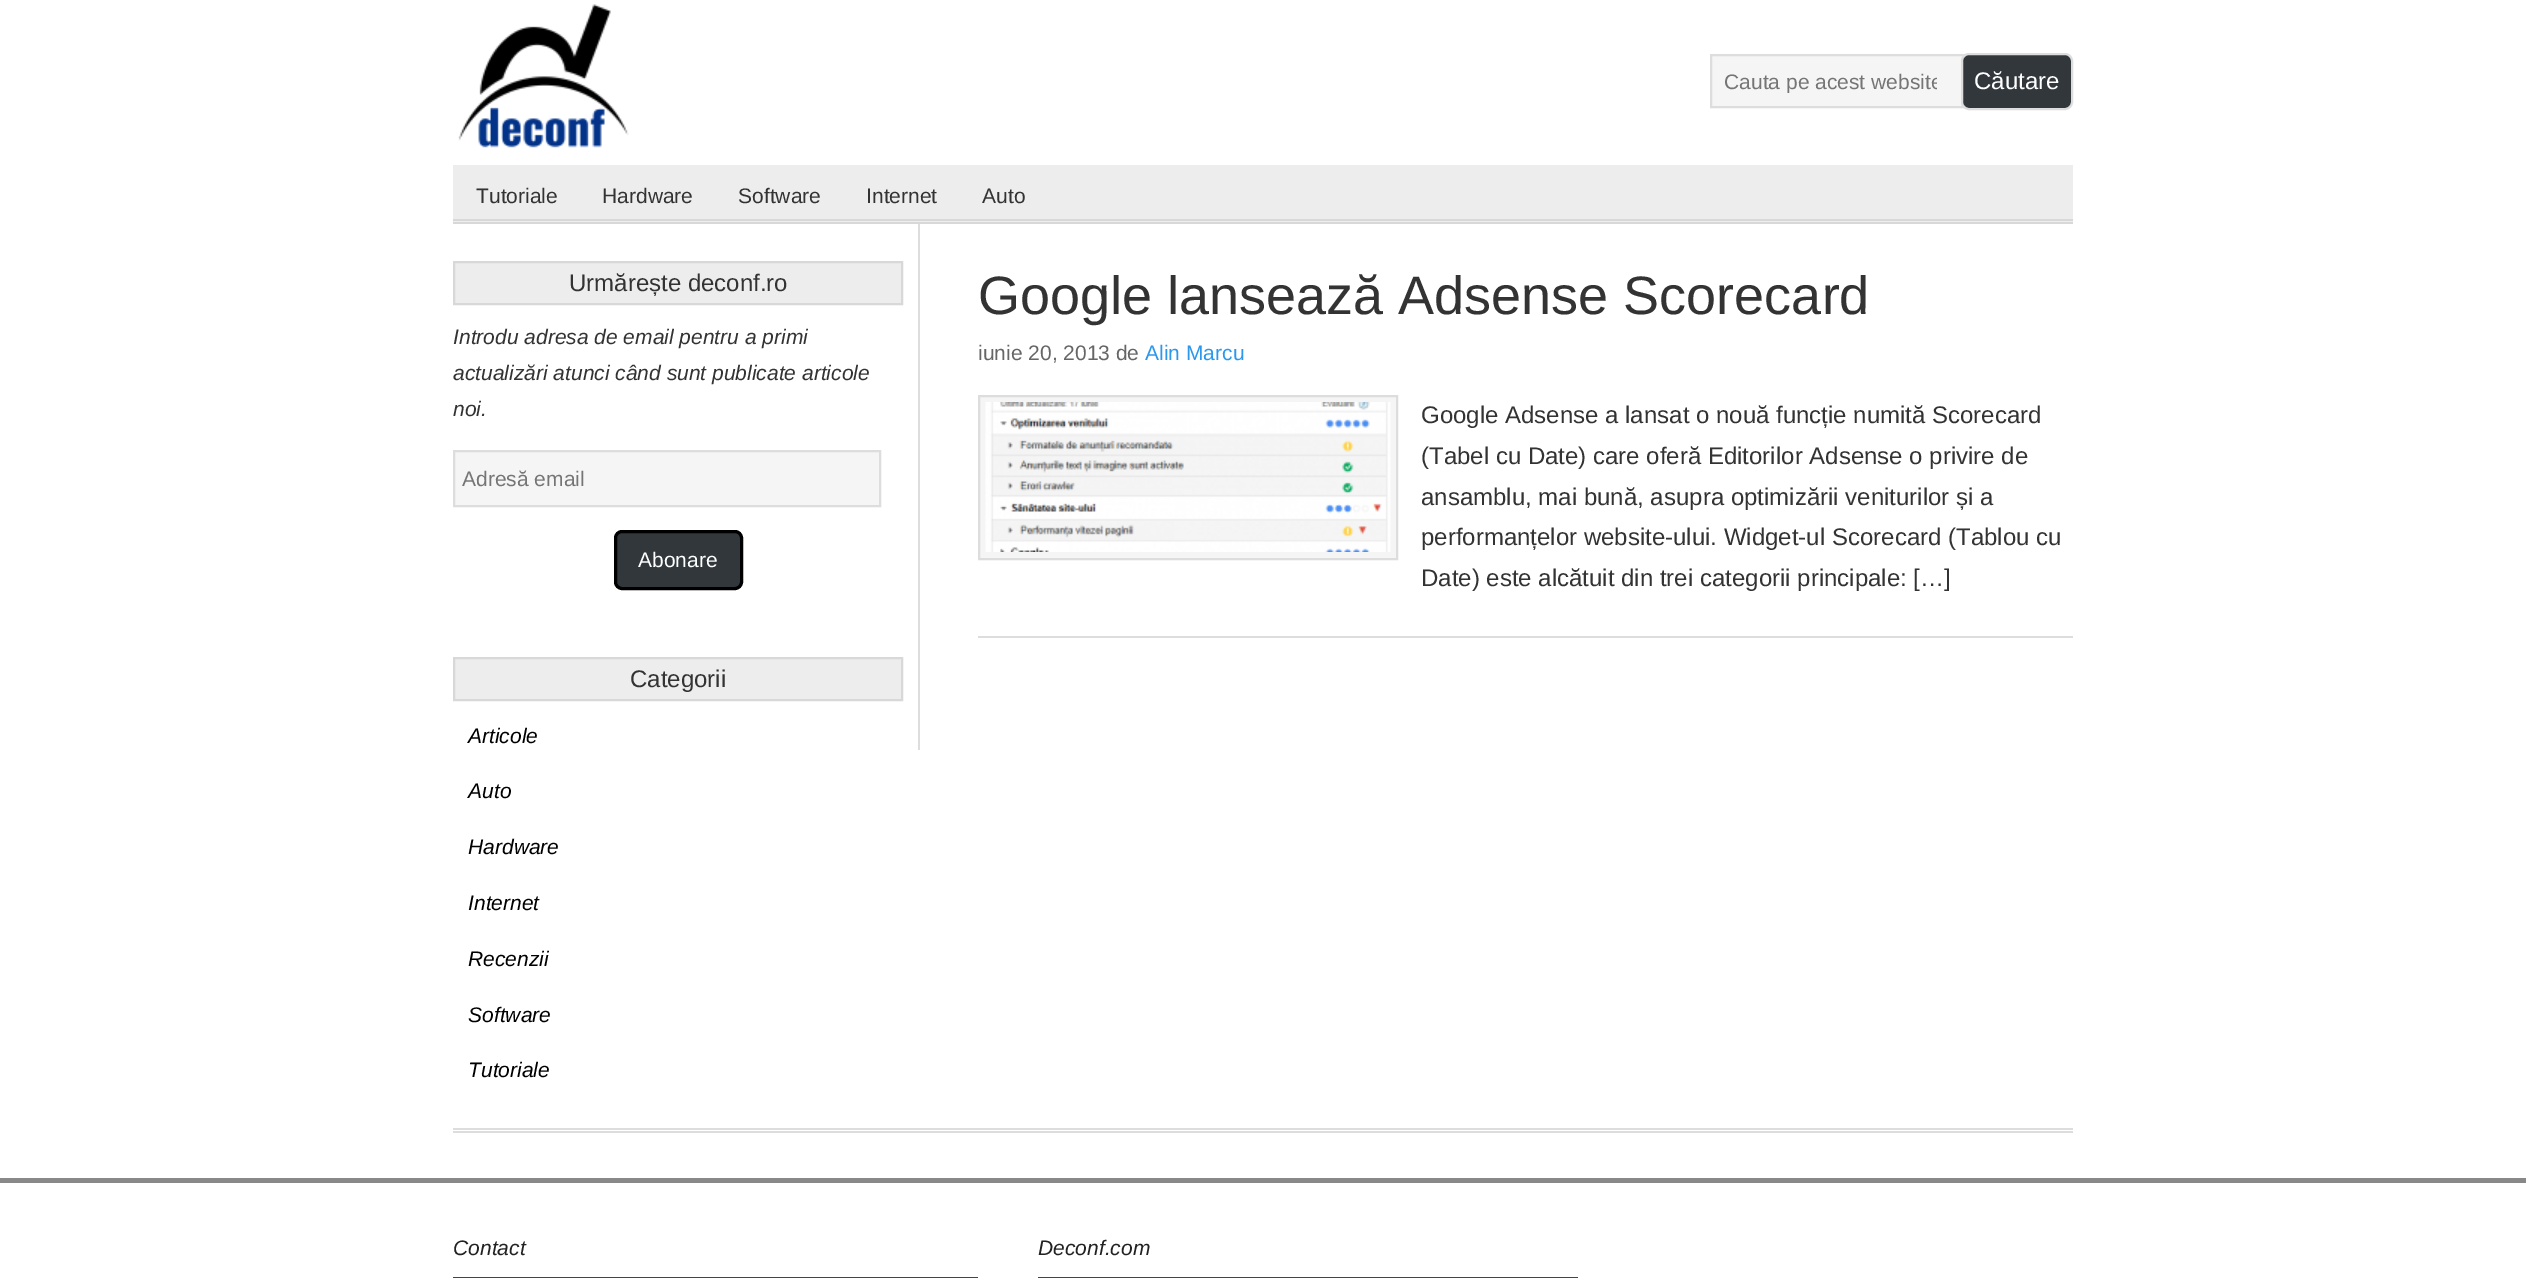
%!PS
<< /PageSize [2526 1278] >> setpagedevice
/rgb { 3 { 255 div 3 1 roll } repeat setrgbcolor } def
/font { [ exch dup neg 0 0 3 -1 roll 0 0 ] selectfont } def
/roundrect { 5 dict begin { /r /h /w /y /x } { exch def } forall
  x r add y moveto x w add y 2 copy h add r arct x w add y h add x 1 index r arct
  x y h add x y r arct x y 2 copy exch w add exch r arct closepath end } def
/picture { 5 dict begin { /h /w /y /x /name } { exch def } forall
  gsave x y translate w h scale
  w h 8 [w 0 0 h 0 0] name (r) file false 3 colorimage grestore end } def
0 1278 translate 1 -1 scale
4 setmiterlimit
255 255 255 rgb
0 0 2526 1278 rectfill
(img/1.rgb) 458 4 171 144 picture
245 245 245 rgb
1712 56 251 50 rectfill
221 221 221 rgb
2 setlinewidth
1711 55 259 52 rectstroke
50 55 60 rgb
1962 54 110 55 7 roundrect gsave fill grestore
221 221 221 rgb
stroke
[
  [453 165 1620 57 237 237 237]
  [453 219 1620 2 216 216 216]
  [453 222 1620 2 216 216 216]
  [453 1128 1620 2 221 221 221]
  [453 1131 1620 2 221 221 221]
] { aload pop rgb rectfill } forall
237 237 237 rgb
454 262 moveto 902 262 lineto 902 304 lineto 454 304 lineto closepath gsave fill grestore
216 216 216 rgb
stroke
245 245 245 rgb
454 451 moveto 880 451 lineto 880 506 lineto 454 506 lineto closepath gsave fill grestore
221 221 221 rgb
stroke
50 55 60 rgb
615.5 531.5 126 57 6.5 roundrect gsave fill grestore
0 0 0 rgb
3 setlinewidth
stroke
237 237 237 rgb
454 658 moveto 902 658 lineto 902 700 lineto 454 700 lineto closepath gsave fill grestore
216 216 216 rgb
2 setlinewidth
stroke
221 221 221 rgb
918 224 2 526 rectfill
245 245 245 rgb
979 396 moveto 1397 396 lineto 1397 559 lineto 979 559 lineto closepath gsave fill grestore
221 221 221 rgb
stroke
(img/2.rgb) 985 402 406 150 picture
[
  [978 636 1095 2 221 221 221]
  [0 1178 2526 5 136 136 136]
  [453 1277 525 1 68 68 68]
  [1038 1277 540 1 68 68 68]
] { aload pop rgb rectfill } forall
gsave
1724 69 213 24 rectclip
/LiberationSans-Regular 21 font
117 117 117 rgb
1724 89 moveto (Cauta pe acest website) show
grestore
/LiberationSans-Regular 24 font
255 255 255 rgb
1974 89 moveto (Căutare) show
/LiberationSans-Regular 21 font
51 51 51 rgb
[
  [(Tutoriale) 476 203]
  [(Hardware) 602 203]
  [(Software) 738 203]
  [(Internet) 866 203]
  [(Auto) 982 203]
] { aload pop moveto show } forall
/LiberationSans-Regular 24 font
569 291 moveto (Urmărește deconf.ro) show
/LiberationSans-Italic 21 font
[
  [(Introdu adresa de email pentru a primi) 453 344]
  [(actualizări atunci când sunt publicate articole) 453 380]
  [(noi.) 453 416]
] { aload pop moveto show } forall
/LiberationSans-Regular 21 font
117 117 117 rgb
462 486 moveto (Adresă email) show
255 255 255 rgb
638 567 moveto (Abonare) show
/LiberationSans-Regular 24 font
51 51 51 rgb
630 687 moveto (Categorii) show
/LiberationSans-Italic 21 font
0 0 0 rgb
[
  [(Articole) 468 743]
  [(Auto) 468 798]
  [(Hardware) 468 854]
  [(Internet) 468 910]
  [(Recenzii) 468 966]
  [(Software) 468 1022]
  [(Tutoriale) 468 1077]
] { aload pop moveto show } forall
/LiberationSans-Regular 54 font
51 51 51 rgb
978 314 moveto (Google lansează Adsense Scorecard) show
/LiberationSans-Regular 21 font
102 102 102 rgb
978 360 moveto (iunie 20, 2013 de) show
43 151 237 rgb
1145 360 moveto (Alin Marcu) show
/LiberationSans-Regular 24 font
51 51 51 rgb
[
  [(Google Adsense a lansat o nouă funcție numită Scorecard) 1421 423]
  [(\(Tabel cu Date\) care oferă Editorilor Adsense o privire de) 1421 464]
  [(ansamblu, mai bună, asupra optimizării veniturilor și a) 1421 505]
  [(performanțelor website-ului. Widget-ul Scorecard \(Tablou cu) 1421 545]
  [(Date\) este alcătuit din trei categorii principale: […]) 1421 586]
] { aload pop moveto show } forall
/LiberationSans-Italic 21 font
34 34 34 rgb
453 1255 moveto (Contact) show
1038 1255 moveto (Deconf.com) show
showpage
